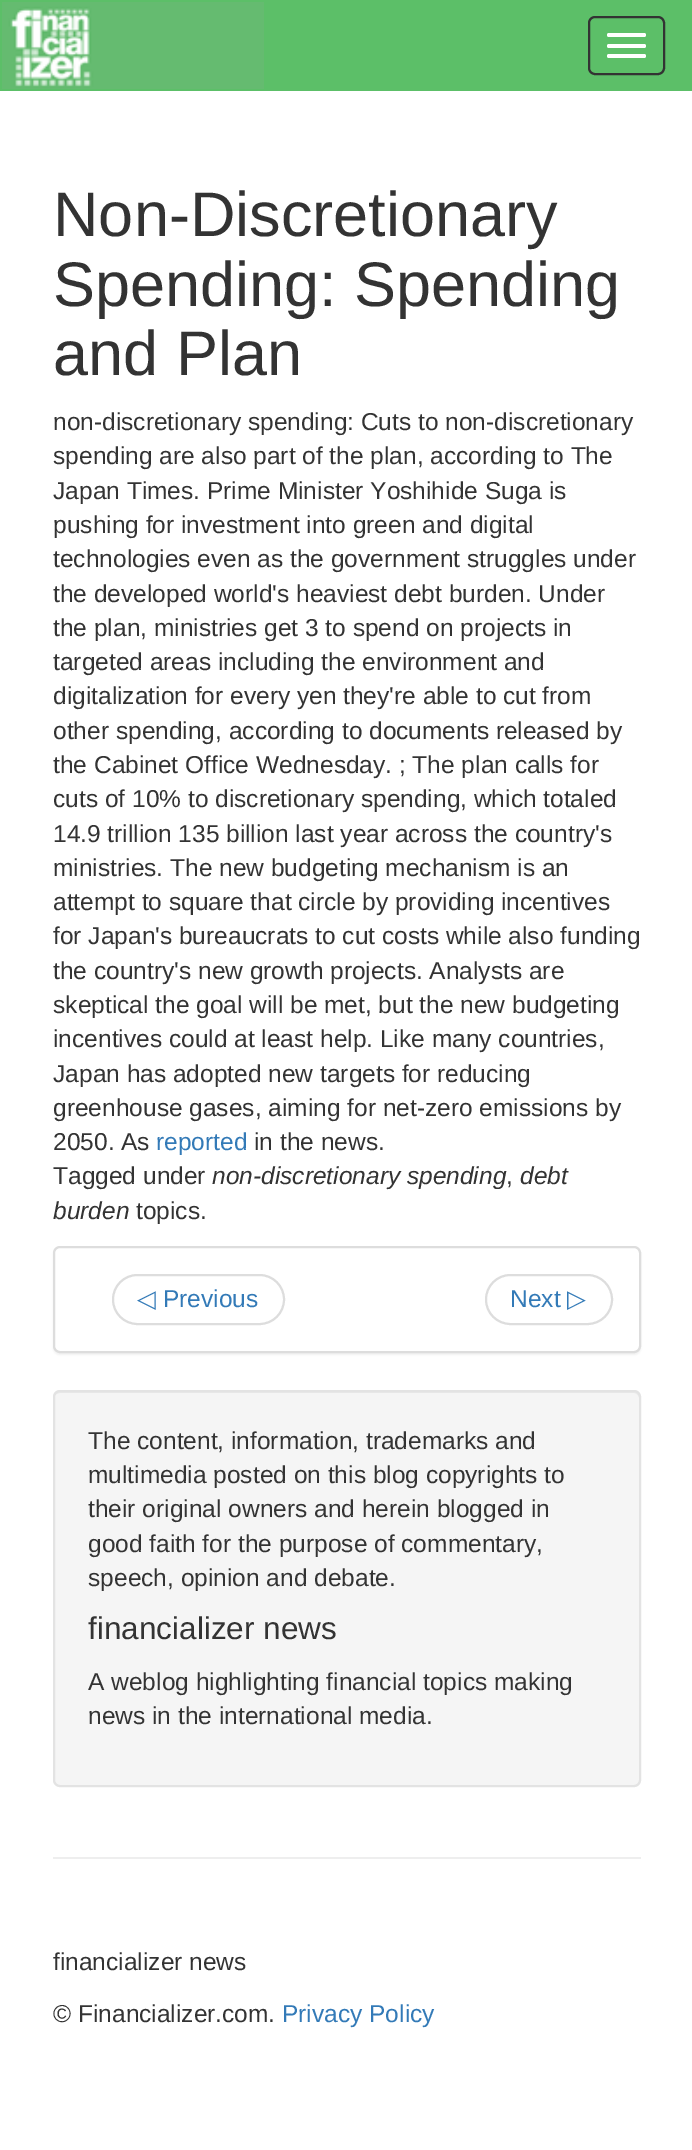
%!PS
<< /PageSize [692 2150] /PageUsesTransparency true >> setpagedevice
/rgb { 3 { 255 div 3 1 roll } repeat setrgbcolor } def
/font { [ exch dup neg 0 0 3 -1 roll 0 0 ] selectfont } def
/alpha { dup .setfillconstantalpha .setstrokeconstantalpha } def
/roundrect { 5 dict begin { /r /h /w /y /x } { exch def } forall
  x r add y moveto x w add y 2 copy h add r arct x w add y h add x 1 index r arct
  x y h add x y r arct x y 2 copy exch w add exch r arct closepath end } def
/shadow { 12 dict begin { /a /b /q /h /w /y /x } { exch def } forall gsave /was 0 def
  9 -2 -9 { dup b mul 4 div /e exch def 1 sub .425 mul 2.718 exch exp 1 add a .99 .min exch div /now exch def
    1 1 now sub 1 was sub div sub alpha /was now def
    w h .min e 2 mul add 0 gt { x e sub y e sub w e 2 mul add h e 2 mul add
      q e add b .6 mul add w h .min 2 div e add .min 0 .max roundrect fill } if } for grestore end } def
/picture { 5 dict begin { /h /w /y /x /name } { exch def } forall
  gsave x y translate w h scale
  w h 8 [w 0 0 h 0 0] name (r) file false 3 colorimage grestore end } def
0 .pushpdf14devicefilter
0 2150 translate 1 -1 scale
4 setmiterlimit
255 255 255 rgb
0 0 692 2150 rectfill
92 191 104 rgb
0 0 692 91 rectfill
(img/1.rgb) 2 2 262 87 picture
51 51 51 rgb
2 setlinewidth
589 17 75 57 6 roundrect stroke
255 255 255 rgb
607 33 39 4 2 roundrect fill
607 44 39 4 2 roundrect fill
607 54 39 4 2 roundrect fill
0 0 0 rgb
53 1248 588 107 7 1 0.05 shadow
255 255 255 rgb
54 1247 586 105 6 roundrect gsave fill grestore
221 221 221 rgb
stroke
113 1275 171 49 24.5 roundrect stroke
486 1275 126 49 24.5 roundrect stroke
245 245 245 rgb
53 1390 588 397 7 roundrect fill
233 233 233 rgb
60 1393 moveto 634 1393 lineto 636 1393 639 1395 639 1398 curveto 639 1396 lineto 639 1393 637 1391 634 1391 curveto 59 1391 lineto 56 1391 54 1393 54 1396 curveto 54 1398 lineto 54 1395 57 1393 60 1393 curveto closepath fill
227 227 227 rgb
54 1391 586 395 6 roundrect stroke
238 238 238 rgb
53 1857 588 2 rectfill
/LiberationSans-Regular 63 font
51 51 51 rgb
[
  [(Non-Discretionary) 53 236]
  [(Spending: Spending) 53 306]
  [(and Plan) 53 375]
] { aload pop moveto show } forall
/LiberationSans-Regular 24.5 font
[
  [(non-discretionary spending: Cuts to non-discretionary) 53 430]
  [(spending are also part of the plan, according to The) 53 464]
  [(Japan Times. Prime Minister Yoshihide Suga is) 53 499]
  [(pushing for investment into green and digital) 53 533]
  [(technologies even as the government struggles under) 53 567]
  [(the developed world's heaviest debt burden. Under) 53 602]
  [(the plan, ministries get 3 to spend on projects in) 53 636]
  [(targeted areas including the environment and) 53 670]
  [(digitalization for every yen they're able to cut from) 53 704]
  [(other spending, according to documents released by) 53 739]
  [(the Cabinet Office Wednesday. ; The plan calls for) 53 773]
  [(cuts of 10% to discretionary spending, which totaled) 53 807]
  [(14.9 trillion 135 billion last year across the country's) 53 842]
  [(ministries. The new budgeting mechanism is an) 53 876]
  [(attempt to square that circle by providing incentives) 53 910]
  [(for Japan's bureaucrats to cut costs while also funding) 53 944]
  [(the country's new growth projects. Analysts are) 53 979]
  [(skeptical the goal will be met, but the new budgeting) 53 1013]
  [(incentives could at least help. Like many countries,) 53 1047]
  [(Japan has adopted new targets for reducing) 53 1082]
  [(greenhouse gases, aiming for net-zero emissions by) 53 1116]
  [(2050. As) 53 1150]
] { aload pop moveto show } forall
51 122 183 rgb
156 1150 moveto (reported) show
51 51 51 rgb
254 1150 moveto (in the news.) show
53 1184 moveto (Tagged under) show
/LiberationSans-Italic 24.5 font
212 1184 moveto (non-discretionary spending) show
/LiberationSans-Regular 24.5 font
506 1184 moveto (,) show
/LiberationSans-Italic 24.5 font
520 1184 moveto (debt) show
53 1219 moveto (burden) show
/LiberationSans-Regular 24.5 font
136 1219 moveto (topics.) show
/DejaVuSans-Regular 24.5 font
51 122 183 rgb
137 1307 moveto (◁) show
/LiberationSans-Regular 24.5 font
163 1307 moveto (Previous) show
510 1307 moveto (Next) show
/DejaVuSans-Regular 24.5 font
567 1307 moveto (▷) show
/LiberationSans-Regular 24.5 font
51 51 51 rgb
[
  [(The content, information, trademarks and) 88 1449]
  [(multimedia posted on this blog copyrights to) 88 1483]
  [(their original owners and herein blogged in) 88 1517]
  [(good faith for the purpose of commentary,) 88 1552]
  [(speech, opinion and debate.) 88 1586]
] { aload pop moveto show } forall
/LiberationSans-Regular 31.5 font
88 1639 moveto (financializer news) show
/LiberationSans-Regular 24.5 font
[
  [(A weblog highlighting financial topics making) 88 1690]
  [(news in the international media.) 88 1724]
  [(financializer news) 53 1970]
  [(© Financializer.com.) 53 2022]
] { aload pop moveto show } forall
51 122 183 rgb
282 2022 moveto (Privacy Policy) show
.poppdf14devicefilter showpage
